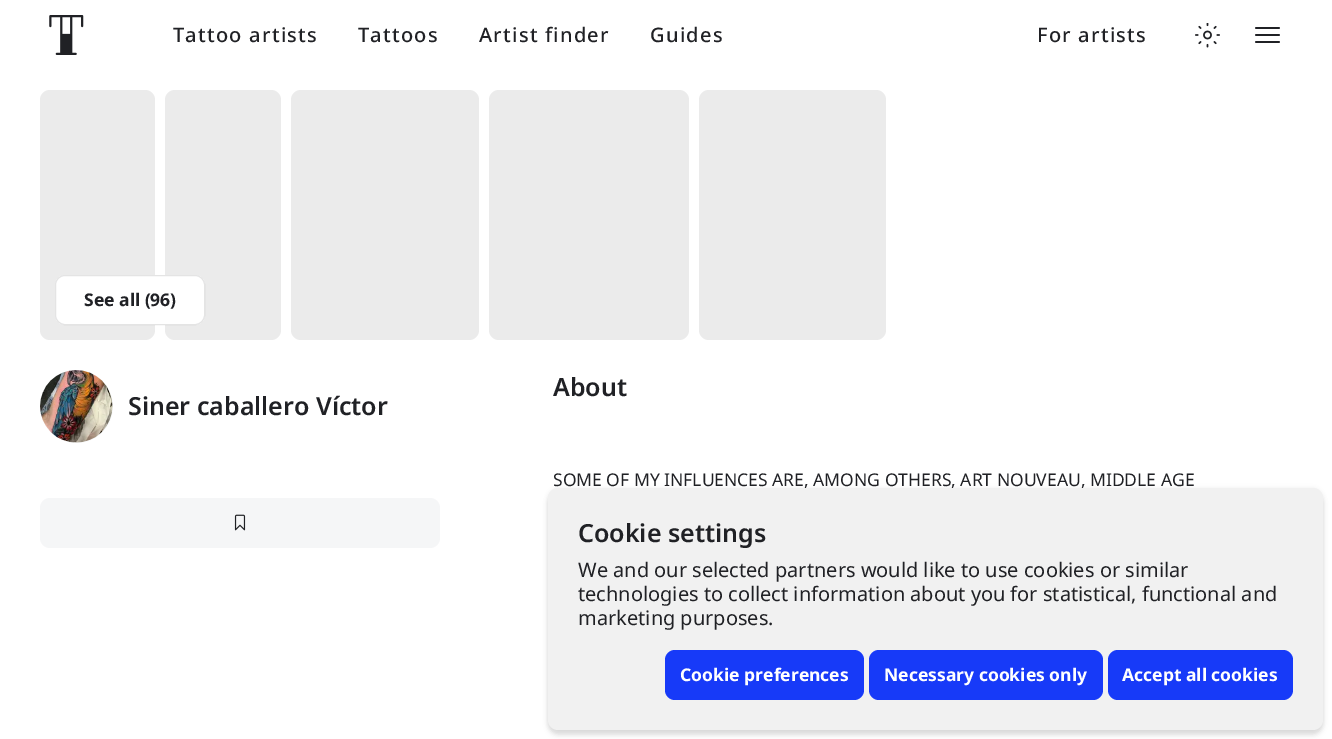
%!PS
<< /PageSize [1332 739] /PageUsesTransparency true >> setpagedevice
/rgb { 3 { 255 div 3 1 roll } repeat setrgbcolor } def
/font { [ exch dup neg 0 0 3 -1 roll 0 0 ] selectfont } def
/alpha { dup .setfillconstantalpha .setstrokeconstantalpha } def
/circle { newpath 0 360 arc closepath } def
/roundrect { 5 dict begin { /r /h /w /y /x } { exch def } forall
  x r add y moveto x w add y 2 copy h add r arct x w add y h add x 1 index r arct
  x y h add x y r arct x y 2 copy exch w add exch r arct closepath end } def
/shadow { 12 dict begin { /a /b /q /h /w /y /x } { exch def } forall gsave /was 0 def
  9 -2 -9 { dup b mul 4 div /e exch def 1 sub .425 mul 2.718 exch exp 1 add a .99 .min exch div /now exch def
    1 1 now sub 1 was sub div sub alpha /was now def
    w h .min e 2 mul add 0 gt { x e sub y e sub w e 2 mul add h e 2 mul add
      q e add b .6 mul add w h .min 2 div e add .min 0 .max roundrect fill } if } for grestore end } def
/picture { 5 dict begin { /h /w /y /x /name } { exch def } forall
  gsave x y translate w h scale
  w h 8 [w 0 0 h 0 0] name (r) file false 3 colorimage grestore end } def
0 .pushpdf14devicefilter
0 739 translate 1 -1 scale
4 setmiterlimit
255 255 255 rgb
0 0 1332 739 rectfill
(img/1.rgb) 49 15 35 40 picture
(img/2.rgb) 1195 23 25 25 picture
32 33 37 rgb
1.7 setlinewidth
1 setlinecap
1 setlinejoin
1256 42 moveto 1279 42 lineto 1256 35 moveto 1279 35 lineto 1256 28 moveto 1279 28 lineto stroke
235 235 235 rgb
40 90 115 250 10 roundrect fill
165 90 116 250 10 roundrect fill
291 90 188 250 10 roundrect fill
489 90 200 250 10 roundrect fill
699 90 187 250 10 roundrect fill
255 255 255 rgb
55 275 150 50 10 roundrect fill
0.12 alpha
32 33 37 rgb
1 setlinewidth
0 setlinecap
0 setlinejoin
55.5 275.5 149 49 9.5 roundrect stroke
1 alpha
245 246 247 rgb
76.5 406.5 36.5 circle fill
(img/3.rgb) 40 370 73 73 picture
40 498 400 50 10 roundrect fill
(img/4.rgb) 234 514 12 17 picture
0 0 0 rgb
548 488 775 242 10 2.5 0.06 shadow
548 493 775 242 10 2.5 0.12 shadow
/NotoSans-Medium 20 font
32 33 37 rgb
173 42 moveto 1.25 0 (Tattoo artists) ashow
358 42 moveto 1.25 0 (Tattoos) ashow
479 42 moveto 1.25 0 (Artist finder) ashow
650 42 moveto 1.25 0 (Guides) ashow
1037 42 moveto 1.25 0 (For artists) ashow
/NotoSans-Bold 17.5 font
84 306 moveto (See all \(96\)) show
/NotoSans-SemiBold 25 font
128 415 moveto (Siner caballero Víctor) show
553 396 moveto (About) show
/NotoSans-Regular 17.5 font
553 486 moveto (SOME OF MY INFLUENCES ARE, AMONG OTHERS, ART NOUVEAU, MIDDLE AGE) show
241 241 241 rgb
548 488 775 242 10 roundrect fill
/NotoSans-SemiBold 25 font
32 33 37 rgb
578 542 moveto (Cookie settings) show
/NotoSans-Regular 20 font
[
  [(We and our selected partners would like to use cookies or similar) 578 577]
  [(technologies to collect information about you for statistical, functional and) 578 601]
  [(marketing purposes.) 578 625]
] { aload pop moveto show } forall
23 58 248 rgb
665 650 199 50 10 roundrect fill
/NotoSans-Bold 17.5 font
255 255 255 rgb
680 681 moveto (Cookie preferences) show
23 58 248 rgb
869 650 234 50 10 roundrect fill
255 255 255 rgb
884 681 moveto (Necessary cookies only) show
23 58 248 rgb
1108 650 185 50 10 roundrect fill
255 255 255 rgb
1122 681 moveto (Accept all cookies) show
.poppdf14devicefilter showpage
